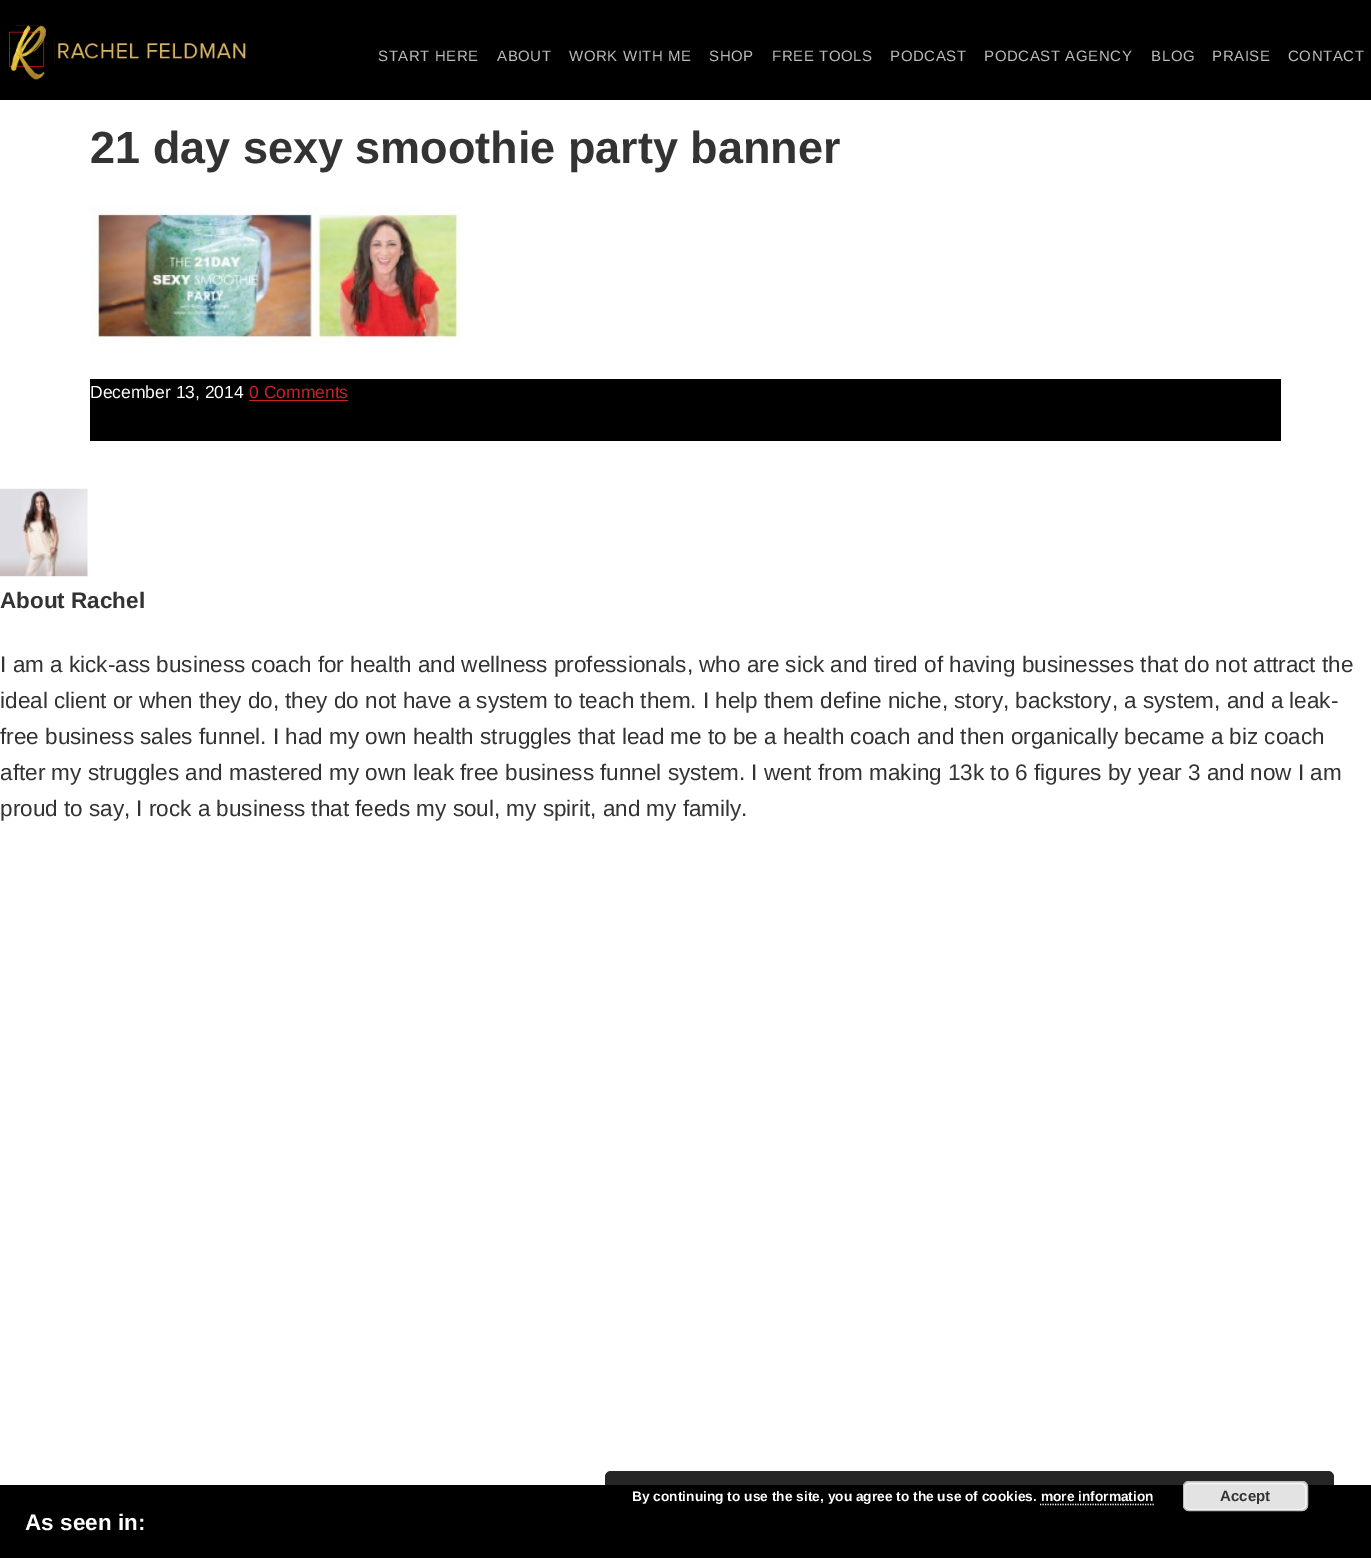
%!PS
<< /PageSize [1371 1558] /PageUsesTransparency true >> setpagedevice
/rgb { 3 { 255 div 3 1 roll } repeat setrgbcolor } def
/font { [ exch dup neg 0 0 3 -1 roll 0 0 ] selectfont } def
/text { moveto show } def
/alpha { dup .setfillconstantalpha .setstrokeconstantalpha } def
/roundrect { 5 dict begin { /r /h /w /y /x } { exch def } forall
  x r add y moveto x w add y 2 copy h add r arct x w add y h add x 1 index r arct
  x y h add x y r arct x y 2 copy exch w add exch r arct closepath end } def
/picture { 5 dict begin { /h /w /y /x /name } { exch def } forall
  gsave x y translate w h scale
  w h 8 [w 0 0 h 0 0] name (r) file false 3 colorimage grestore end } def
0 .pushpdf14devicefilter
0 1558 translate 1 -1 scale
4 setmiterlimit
255 255 255 rgb
0 0 1371 1558 rectfill
0 0 0 rgb
0 0 1371 100 rectfill
(img_01.rgb) 9 25 237 55 picture
(img_02.rgb) 90 206 375 139 picture
90 379 1191 62 rectfill
203 32 40 rgb
249 400 99 1 rectfill
(img_03.rgb) 0 488 88 89 picture
0 0 0 rgb
0 1485 1371 73 rectfill
0.85 alpha
605 1471 729 50 6 roundrect fill
1 alpha
227 227 227 rgb
1183 1481 125 30 6 roundrect fill
246 246 246 rgb
1184.5 1483.5 121 26 4.5 roundrect stroke
187 187 187 rgb
1183.5 1481.5 124 29 5.5 roundrect stroke
255 255 255 rgb
1.2 setlinewidth
[1.25 1.25] 0 setdash
1040 1504.5 moveto 114 0 rlineto stroke
/LiberationSans-Regular 15 font
187 187 187 rgb
378 61 moveto 0.6 0 (START HERE) ashow
497 61 moveto 0.6 0 (ABOUT) ashow
569 61 moveto 0.6 0 (WORK WITH ME) ashow
709 61 moveto 0.6 0 (SHOP) ashow
772 61 moveto 0.6 0 (FREE TOOLS) ashow
890 61 moveto 0.6 0 (PODCAST) ashow
984 61 moveto 0.6 0 (PODCAST AGENCY) ashow
1151 61 moveto 0.6 0 (BLOG) ashow
1212 61 moveto 0.6 0 (PRAISE) ashow
1288 61 moveto 0.6 0 (CONTACT) ashow
/LiberationSans-Bold 45 font
51 51 51 rgb
(21 day sexy smoothie party banner) 90 163 text
/LiberationSans-Regular 17.5 font
255 255 255 rgb
(December 13, 2014) 90 398 text
203 32 40 rgb
(0 Comments) 249 398 text
/LiberationSans-Bold 22.5 font
51 51 51 rgb
(About Rachel) 0 608 text
/LiberationSans-Regular 22.5 font
(I am a kick-ass business coach for health and wellness professionals, who are sick and tired of having businesses that do not attract the) 0 672 text
(ideal client or when they do, they do not have a system to teach them. I help them define niche, story, backstory, a system, and a leak-) 0 708 text
(free business sales funnel. I had my own health struggles that lead me to be a health coach and then organically became a biz coach) 0 744 text
(after my struggles and mastered my own leak free business funnel system. I went from making 13k to 6 figures by year 3 and now I am) 0 780 text
(proud to say, I rock a business that feeds my soul, my spirit, and my family.) 0 816 text
/LiberationSans-Bold 22.5 font
255 255 255 rgb
(As seen in:) 25 1530 text
/LiberationSans-Bold 13.75 font
(By continuing to use the site, you agree to the use of cookies. more information) 632 1501 text
/LiberationSans-Bold 15 font
51 51 51 rgb
(Accept) 1220 1501 text
.poppdf14devicefilter showpage
